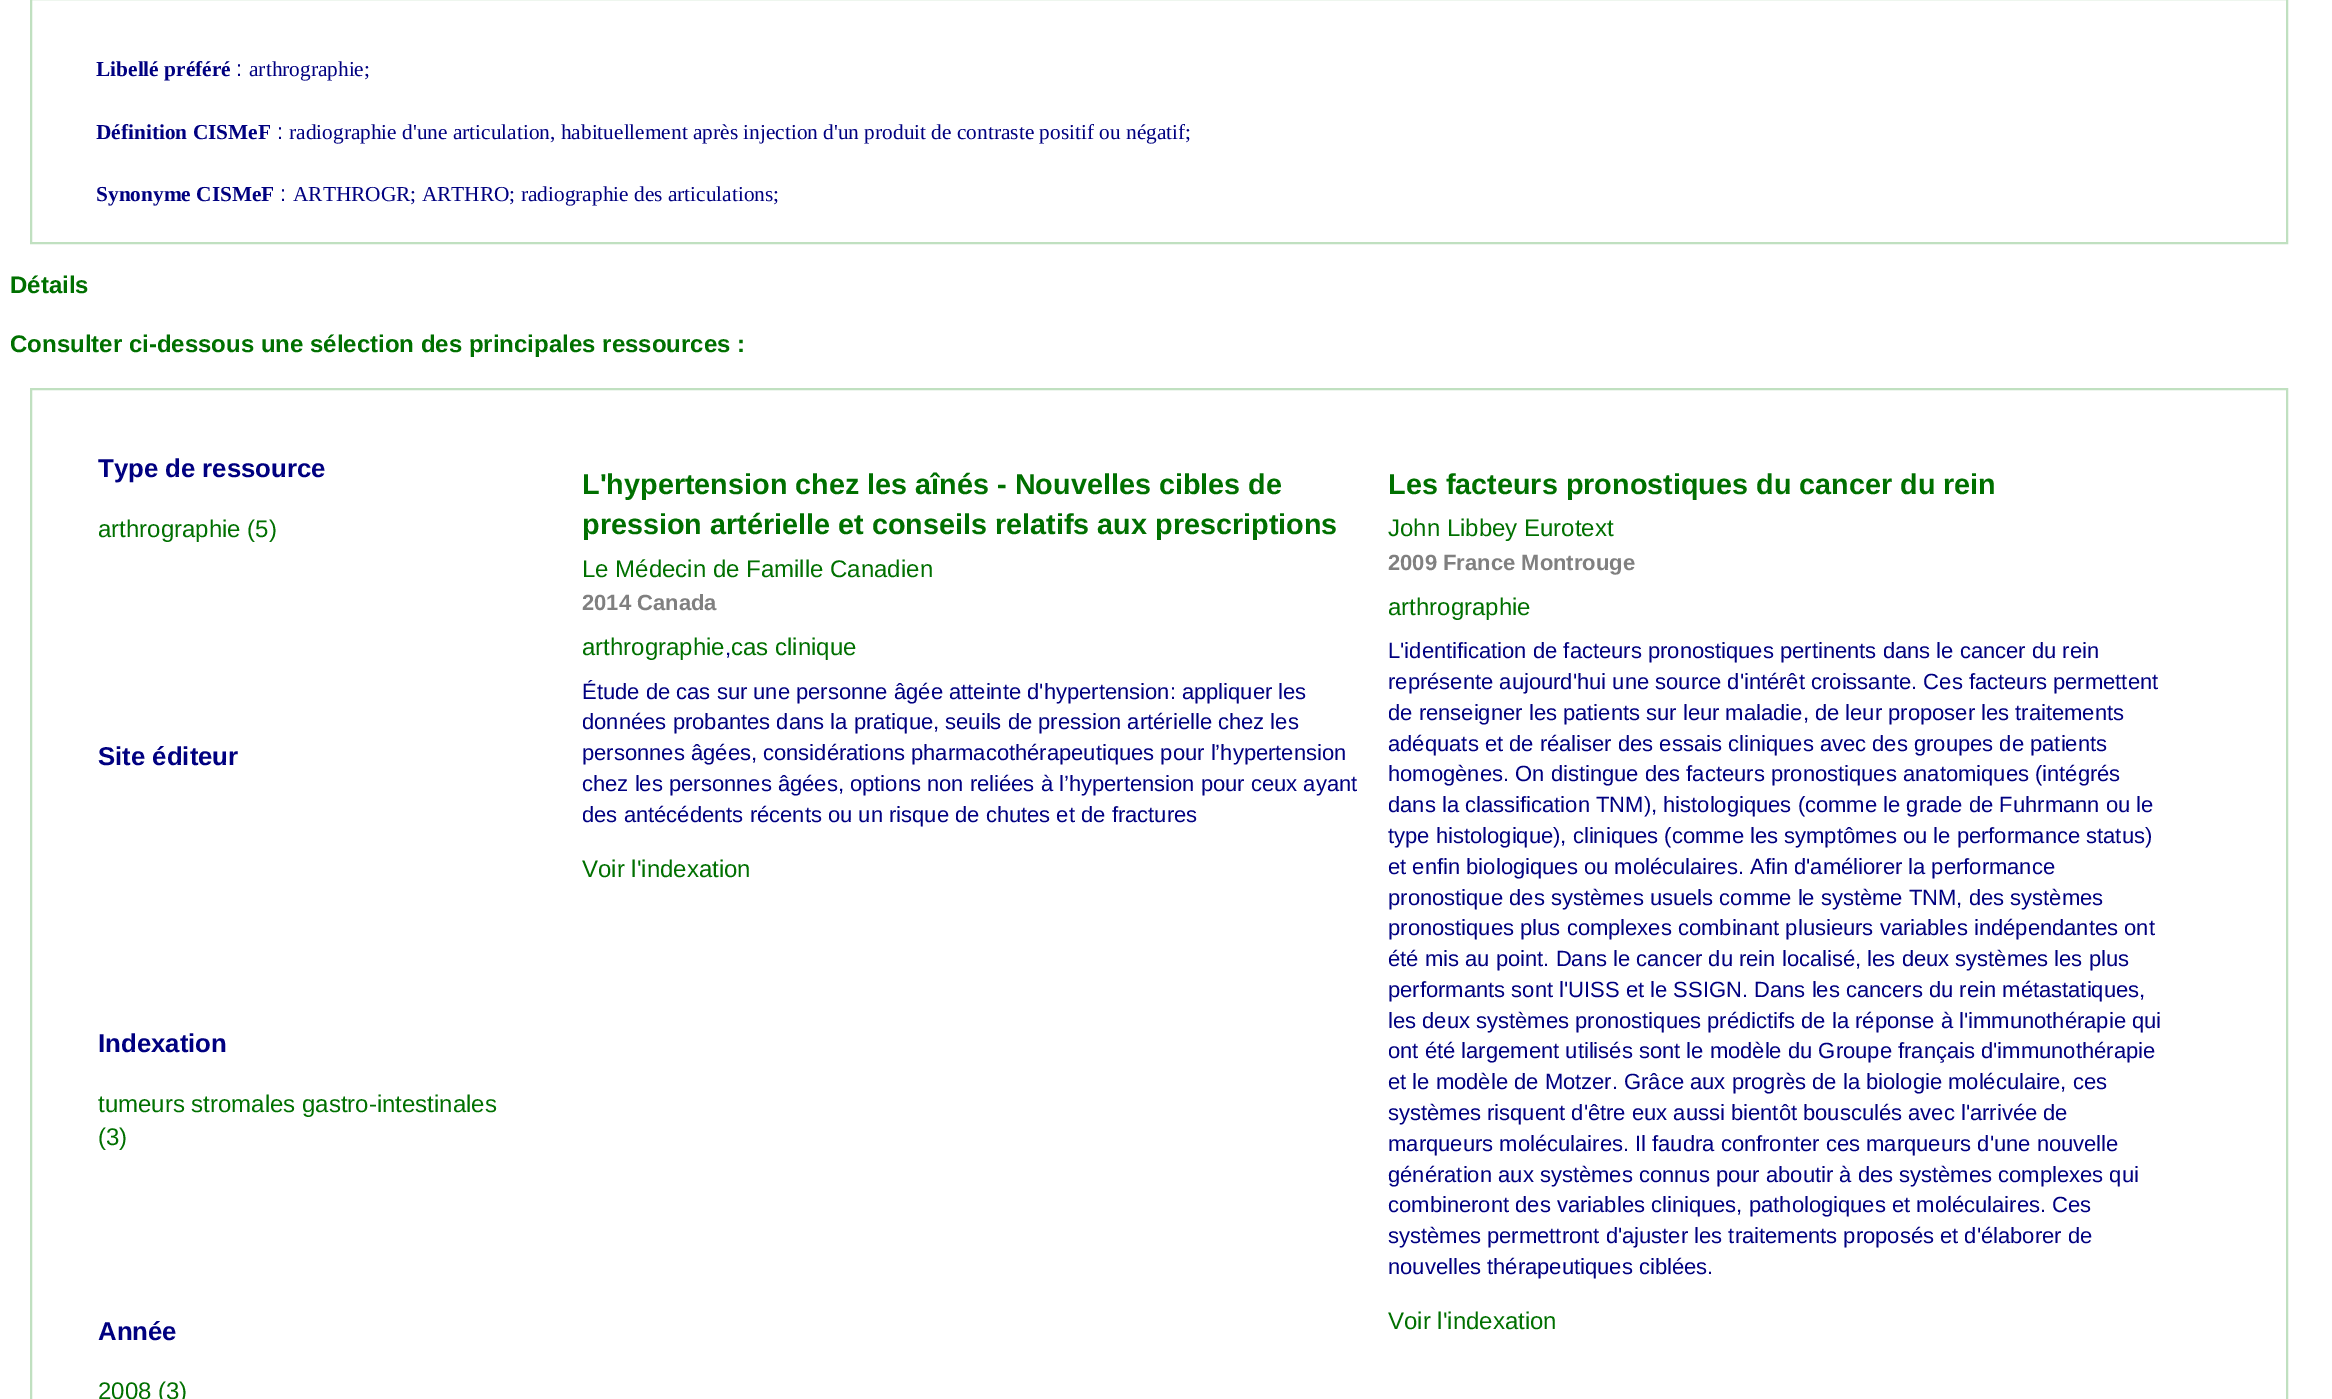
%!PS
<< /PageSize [2332 1399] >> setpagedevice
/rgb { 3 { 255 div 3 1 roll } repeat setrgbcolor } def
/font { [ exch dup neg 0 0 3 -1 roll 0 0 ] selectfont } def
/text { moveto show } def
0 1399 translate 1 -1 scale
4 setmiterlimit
255 255 255 rgb
0 0 2332 1399 rectfill
192 224 192 rgb
2 setlinewidth
31 -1 2256 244 rectstroke
31 389 2256 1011 rectstroke
/LiberationSerif-Bold 21.35 font
0 0 128 rgb
(Libellé préféré) 96 76 text
/LiberationSans-Regular 22 font
(:) 236 76 text
/LiberationSerif-Regular 21.35 font
(arthrographie;) 249 76 text
/LiberationSerif-Bold 21.35 font
(Définition CISMeF) 96 139 text
/LiberationSans-Regular 22 font
(:) 277 139 text
/LiberationSerif-Regular 21.35 font
(radiographie d'une articulation, habituellement après injection d'un produit de contraste positif ou négatif;) 289 139 text
/LiberationSerif-Bold 21.35 font
(Synonyme CISMeF) 96 201 text
/LiberationSans-Regular 22 font
(:) 280 201 text
/LiberationSerif-Regular 21.35 font
(ARTHROGR; ARTHRO; radiographie des articulations;) 293 201 text
/LiberationSans-Bold 24 font
0 112 0 rgb
(Détails) 10 293 text
(Consulter ci-dessous une sélection des principales ressources :) 10 352 text
/LiberationSans-Bold 25.75 font
0 0 128 rgb
(Type de ressource) 98 477 text
/LiberationSans-Regular 24 font
0 112 0 rgb
(arthrographie \(5\)) 98 537 text
/LiberationSans-Bold 25.75 font
0 0 128 rgb
(Site éditeur) 98 765 text
(Indexation) 98 1052 text
/LiberationSans-Regular 24 font
0 112 0 rgb
(tumeurs stromales gastro-intestinales) 98 1112 text
(\(3\)) 98 1145 text
/LiberationSans-Bold 25.75 font
0 0 128 rgb
(Année) 98 1340 text
/LiberationSans-Regular 24 font
0 112 0 rgb
(2008 \(3\)) 98 1399 text
/LiberationSans-Bold 28.8 font
(L'hypertension chez les aînés - Nouvelles cibles de) 582 494 text
(pression artérielle et conseils relatifs aux prescriptions) 582 534 text
/LiberationSans-Regular 24 font
(Le Médecin de Famille Canadien) 582 577 text
/LiberationSans-Bold 22 font
128 128 128 rgb
(2014 Canada) 582 610 text
/LiberationSans-Regular 24 font
0 112 0 rgb
(arthrographie) 582 655 text
/LiberationSans-Regular 22 font
0 0 128 rgb
(,) 725 655 text
/LiberationSans-Regular 24 font
0 112 0 rgb
(cas clinique) 731 655 text
/LiberationSans-Regular 22 font
0 0 128 rgb
(Étude de cas sur une personne âgée atteinte d'hypertension: appliquer les) 582 699 text
(données probantes dans la pratique, seuils de pression artérielle chez les) 582 729 text
(personnes âgées, considérations pharmacothérapeutiques pour l’hypertension) 582 760 text
(chez les personnes âgées, options non reliées à l’hypertension pour ceux ayant) 582 791 text
(des antécédents récents ou un risque de chutes et de fractures) 582 822 text
/LiberationSans-Regular 24 font
0 112 0 rgb
(Voir l'indexation) 582 877 text
/LiberationSans-Bold 28.8 font
(Les facteurs pronostiques du cancer du rein) 1388 494 text
/LiberationSans-Regular 24 font
(John Libbey Eurotext) 1388 536 text
/LiberationSans-Bold 22 font
128 128 128 rgb
(2009 France Montrouge) 1388 570 text
/LiberationSans-Regular 24 font
0 112 0 rgb
(arthrographie) 1388 615 text
/LiberationSans-Regular 22 font
0 0 128 rgb
(L'identification de facteurs pronostiques pertinents dans le cancer du rein) 1388 658 text
(représente aujourd'hui une source d'intérêt croissante. Ces facteurs permettent) 1388 689 text
(de renseigner les patients sur leur maladie, de leur proposer les traitements) 1388 720 text
(adéquats et de réaliser des essais cliniques avec des groupes de patients) 1388 751 text
(homogènes. On distingue des facteurs pronostiques anatomiques \(intégrés) 1388 781 text
(dans la classification TNM\), histologiques \(comme le grade de Fuhrmann ou le) 1388 812 text
(type histologique\), cliniques \(comme les symptômes ou le performance status\)) 1388 843 text
(et enfin biologiques ou moléculaires. Afin d'améliorer la performance) 1388 874 text
(pronostique des systèmes usuels comme le système TNM, des systèmes) 1388 905 text
(pronostiques plus complexes combinant plusieurs variables indépendantes ont) 1388 935 text
(été mis au point. Dans le cancer du rein localisé, les deux systèmes les plus) 1388 966 text
(performants sont l'UISS et le SSIGN. Dans les cancers du rein métastatiques,) 1388 997 text
(les deux systèmes pronostiques prédictifs de la réponse à l'immunothérapie qui) 1388 1028 text
(ont été largement utilisés sont le modèle du Groupe français d'immunothérapie) 1388 1058 text
(et le modèle de Motzer. Grâce aux progrès de la biologie moléculaire, ces) 1388 1089 text
(systèmes risquent d'être eux aussi bientôt bousculés avec l'arrivée de) 1388 1120 text
(marqueurs moléculaires. Il faudra confronter ces marqueurs d'une nouvelle) 1388 1151 text
(génération aux systèmes connus pour aboutir à des systèmes complexes qui) 1388 1182 text
(combineront des variables cliniques, pathologiques et moléculaires. Ces) 1388 1212 text
(systèmes permettront d'ajuster les traitements proposés et d'élaborer de) 1388 1243 text
(nouvelles thérapeutiques ciblées.) 1388 1274 text
/LiberationSans-Regular 24 font
0 112 0 rgb
(Voir l'indexation) 1388 1329 text
showpage
